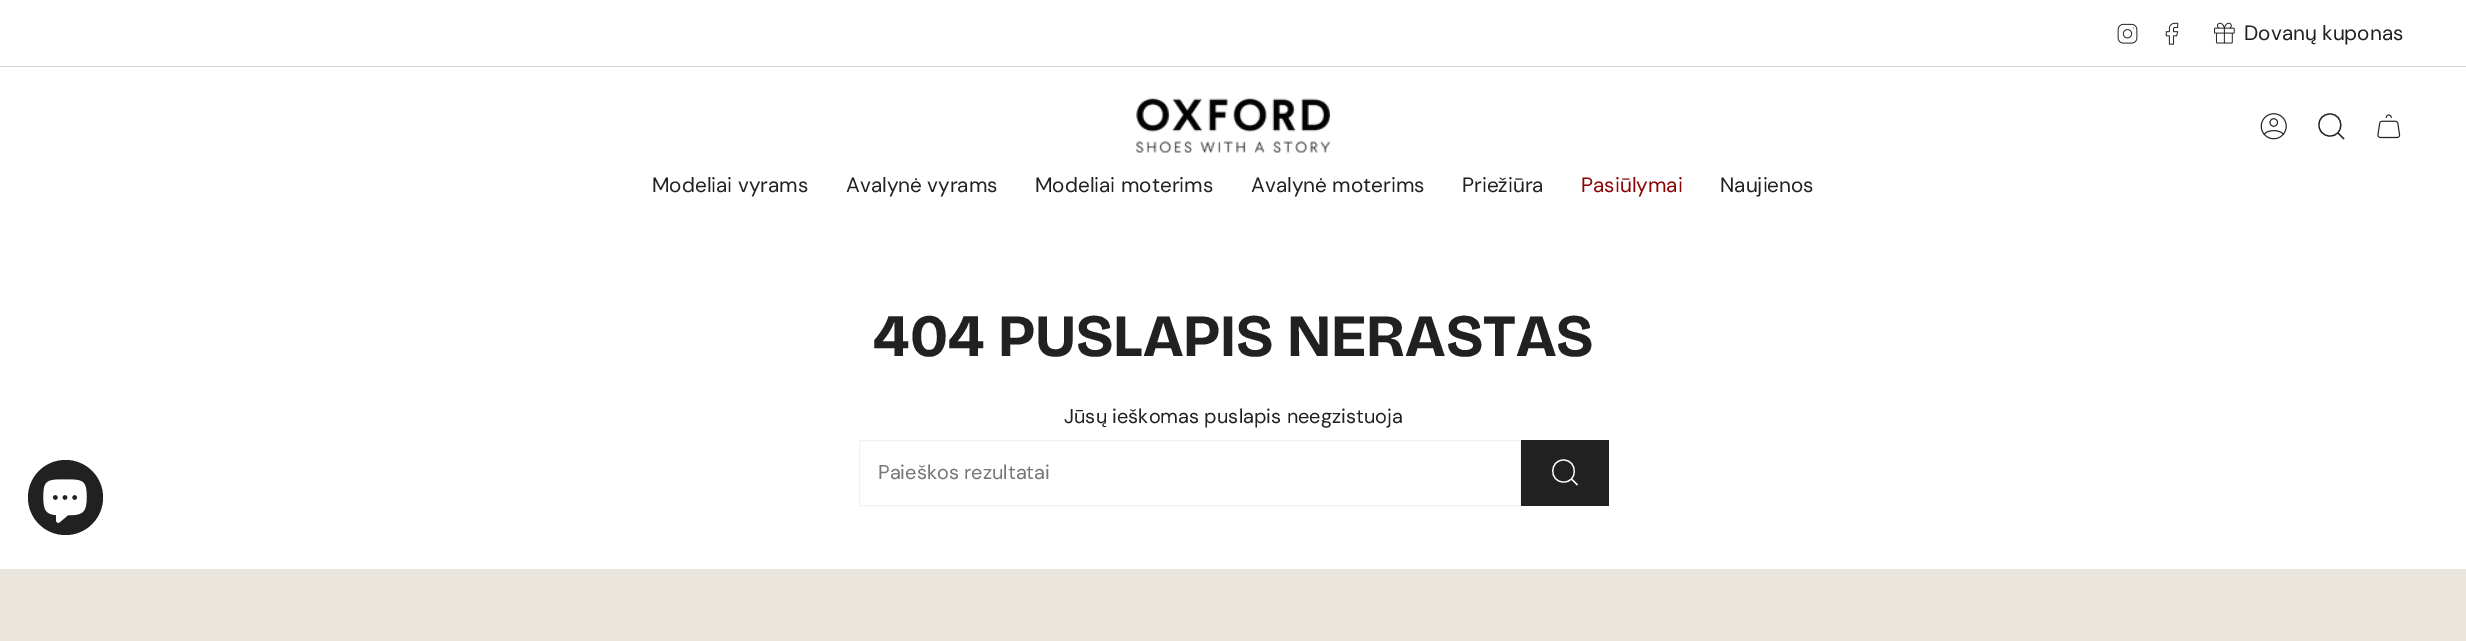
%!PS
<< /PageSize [2466 641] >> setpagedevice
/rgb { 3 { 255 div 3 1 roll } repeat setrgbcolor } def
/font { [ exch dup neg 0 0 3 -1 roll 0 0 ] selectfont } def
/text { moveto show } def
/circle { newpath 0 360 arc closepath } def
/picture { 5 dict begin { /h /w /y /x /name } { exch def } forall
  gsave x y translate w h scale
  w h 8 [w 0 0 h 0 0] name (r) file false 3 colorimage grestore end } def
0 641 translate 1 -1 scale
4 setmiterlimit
255 255 255 rgb
0 0 2466 641 rectfill
(img_01.rgb) 2117 23 21 21 picture
(img_02.rgb) 2165 22 14 23 picture
(img_03.rgb) 2214 22 21 22 picture
211 211 211 rgb
0 66 2466 1 rectfill
(img_04.rgb) 1136 98 194 55 picture
(img_05.rgb) 2260 113 27 27 picture
33 33 33 rgb
1.2 setlinewidth
2330 114 moveto 14.5 0 14.5 22.5 -0.5 22 rcurveto -14.5 -1 -14 -22 0.5 -22 rcurveto closepath 2337.5 132.5 moveto 6.5 6.5 rlineto stroke
(img_06.rgb) 2377 114 24 25 picture
245 242 236 rgb
1 setlinewidth
859.5 440.5 661 65 rectstroke
33 33 33 rgb
1521 440 88 66 rectfill
255 255 255 rgb
1.2 setlinewidth
1563.5 460 moveto 14.5 0 14.5 23 -0.5 22 rcurveto -14 -0.5 -13.5 -22 0.5 -22 rcurveto closepath 1571.5 479 moveto 6 6 rlineto stroke
33 33 33 rgb
65.5 497.5 37.5 circle fill
(img_07.rgb) 43 479 44 44 picture
234 230 221 rgb
0 569 2466 72 rectfill
/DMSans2-Regular 20.75 font
33 33 33 rgb
(Dovanų kuponas) 2244 40 text
(Modeliai vyrams) 652 192 text
(Avalynė vyrams) 846 192 text
(Modeliai moterims) 1035 192 text
(Avalynė moterims) 1251 192 text
(Priežiūra) 1462 192 text
140 3 3 rgb
(Pasiūlymai) 1581 192 text
33 33 33 rgb
(Naujienos) 1720 192 text
/BricolageGrotesque-Bold 60 font
(404 PUSLAPIS NERASTAS) 873 356 text
/DMSans-Regular 20 font
(Jūsų ieškomas puslapis neegzistuoja) 1064 423 text
117 117 117 rgb
(Paieškos rezultatai) 878 479 text
showpage
